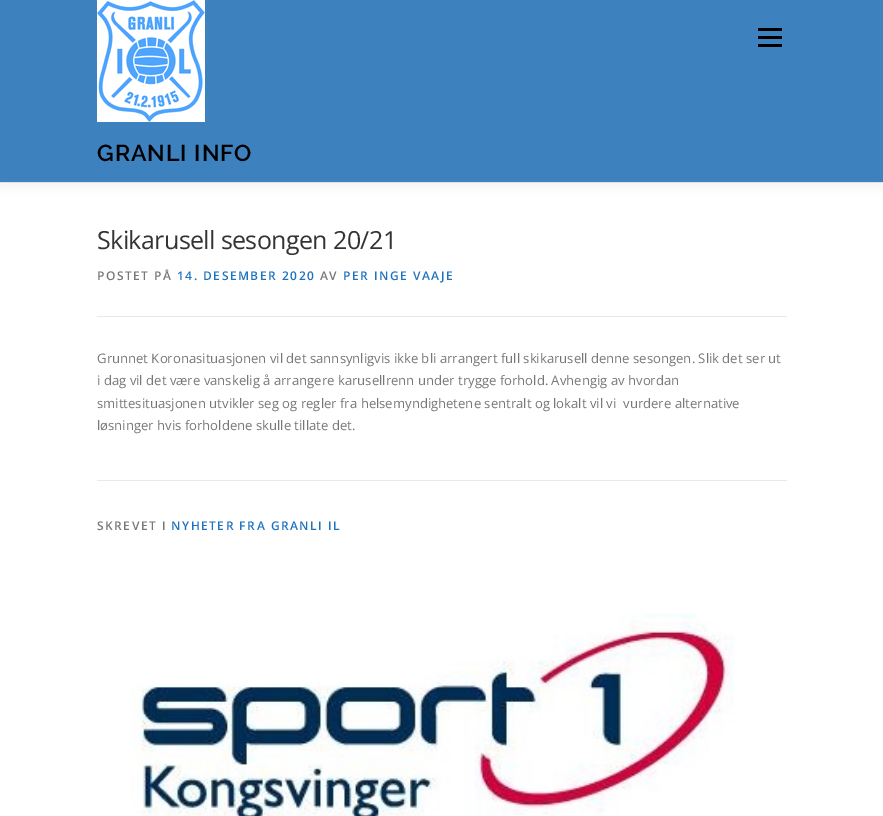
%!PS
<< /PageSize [883 816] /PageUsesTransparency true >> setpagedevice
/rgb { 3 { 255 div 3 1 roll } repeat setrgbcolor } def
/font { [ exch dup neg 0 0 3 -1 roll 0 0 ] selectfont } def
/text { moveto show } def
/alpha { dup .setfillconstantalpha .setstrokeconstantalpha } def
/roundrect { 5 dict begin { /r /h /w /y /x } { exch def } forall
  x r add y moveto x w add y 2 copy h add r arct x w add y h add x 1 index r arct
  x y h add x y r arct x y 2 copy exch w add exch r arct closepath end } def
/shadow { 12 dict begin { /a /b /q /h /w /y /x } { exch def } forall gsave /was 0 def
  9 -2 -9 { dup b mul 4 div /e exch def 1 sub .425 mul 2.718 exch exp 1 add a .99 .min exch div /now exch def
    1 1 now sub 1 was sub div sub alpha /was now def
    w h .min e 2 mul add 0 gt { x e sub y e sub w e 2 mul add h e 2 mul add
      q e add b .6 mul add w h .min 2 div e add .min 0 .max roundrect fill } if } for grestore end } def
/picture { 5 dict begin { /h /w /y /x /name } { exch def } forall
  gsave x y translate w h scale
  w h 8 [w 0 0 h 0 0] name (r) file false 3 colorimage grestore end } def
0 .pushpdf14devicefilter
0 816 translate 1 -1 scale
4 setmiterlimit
255 255 255 rgb
0 0 883 816 rectfill
233 233 233 rgb
0 182 883 1 rectfill
50 50 50 rgb
0 5 883 182 0 5 0.06 shadow
61 130 191 rgb
0 0 883 182 rectfill
0 0 0 rgb
758 36 24 3 rectfill
758 28 24 3 rectfill
758 44 24 3 rectfill
(img_01.rgb) 97 0 108 122 picture
233 233 233 rgb
97 316 690 1 rectfill
97 480 690 1 rectfill
(img_02.rgb) 131 613 604 203 picture
/Raleway-SemiBold 23 font
0 0 0 rgb
97 161 moveto 1 0 (GRANLI INFO) ashow
/OpenSans-Regular 25 font
51 51 51 rgb
97 249 moveto -0.6 0 (Skikarusell sesongen 20/21) ashow
/OpenSans-SemiBold 12 font
119 119 119 rgb
97 280 moveto 1.5 0 (POSTET PÅ) ashow
30 115 190 rgb
177 280 moveto 1.5 0 (14. DESEMBER 2020) ashow
119 119 119 rgb
320 280 moveto 1.5 0 (AV) ashow
30 115 190 rgb
343 280 moveto 1.5 0 (PER INGE VAAJE) ashow
/OpenSans-Regular 13.12 font
119 119 119 rgb
(Grunnet Koronasituasjonen vil det sannsynligvis ikke bli arrangert full skikarusell denne sesongen. Slik det ser ut) 97 363 text
(i dag vil det være vanskelig å arrangere karusellrenn under trygge forhold. Avhengig av hvordan) 97 385 text
(smittesituasjonen utvikler seg og regler fra helsemyndighetene sentralt og lokalt vil vi  vurdere alternative) 97 408 text
(løsninger hvis forholdene skulle tillate det.) 97 430 text
/OpenSans-SemiBold 12 font
97 530 moveto 1.5 0 (SKREVET I) ashow
30 115 190 rgb
171 530 moveto 1.5 0 (NYHETER FRA GRANLI IL) ashow
.poppdf14devicefilter showpage
